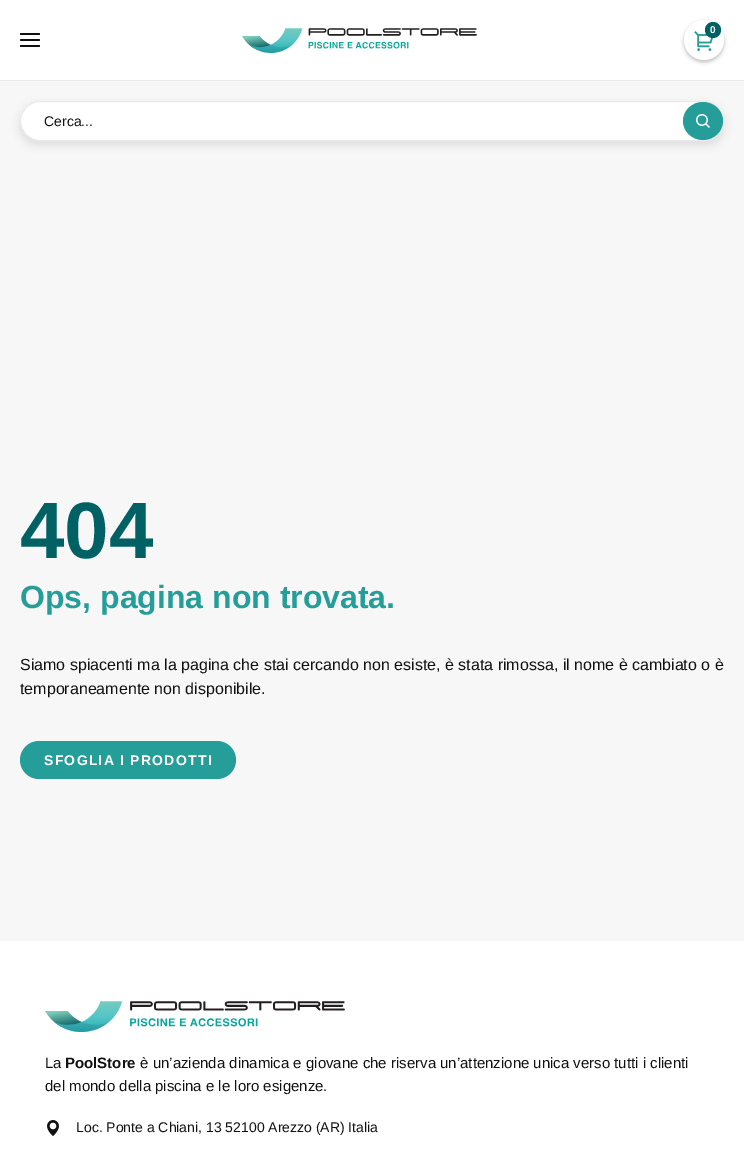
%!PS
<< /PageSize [744 1156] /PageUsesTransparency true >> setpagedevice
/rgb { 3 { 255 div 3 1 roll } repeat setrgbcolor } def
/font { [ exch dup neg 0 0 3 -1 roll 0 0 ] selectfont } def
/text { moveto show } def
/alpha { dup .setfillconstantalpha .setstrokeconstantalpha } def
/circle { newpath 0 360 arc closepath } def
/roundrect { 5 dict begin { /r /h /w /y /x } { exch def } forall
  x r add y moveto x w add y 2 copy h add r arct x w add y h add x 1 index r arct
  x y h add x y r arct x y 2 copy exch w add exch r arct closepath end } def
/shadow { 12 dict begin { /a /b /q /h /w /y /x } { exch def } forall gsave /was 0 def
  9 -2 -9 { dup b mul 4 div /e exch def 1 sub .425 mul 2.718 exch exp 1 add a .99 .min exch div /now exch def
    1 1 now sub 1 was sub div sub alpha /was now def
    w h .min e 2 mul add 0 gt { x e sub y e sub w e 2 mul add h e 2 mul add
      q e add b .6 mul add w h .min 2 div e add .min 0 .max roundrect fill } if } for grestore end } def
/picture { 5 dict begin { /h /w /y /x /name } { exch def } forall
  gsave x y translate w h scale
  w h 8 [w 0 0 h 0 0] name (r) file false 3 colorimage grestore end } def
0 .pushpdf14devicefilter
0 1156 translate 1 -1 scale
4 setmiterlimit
247 247 247 rgb
0 0 744 1156 rectfill
255 255 255 rgb
0 0 744 80 rectfill
17 17 17 rgb
20 33 20 2 1 roundrect fill
20 39 20 2 1 roundrect fill
20 45 20 2 1 roundrect fill
(img_01.rgb) 242 28 235 25 picture
32 33 36 rgb
684 22 40 40 20 2 0.28 shadow
255 255 255 rgb
704 40 20 circle fill
(img_02.rgb) 694 31 20 20 picture
0 97 100 rgb
713 30 8 circle fill
234 234 234 rgb
0 80 744 1 rectfill
32 33 36 rgb
19 104 706 42 21 4 0.11 shadow
255 255 255 rgb
20.5 101.5 703 39 19.5 roundrect gsave fill grestore
234 234 234 rgb
stroke
37 157 153 rgb
703 102 moveto 11 0 20 8.5 20 19 rcurveto 0 10.5 -9 19 -20 19 rcurveto -11 0 -20 -8.5 -20 -19 rcurveto 0 -10.5 9 -19 20 -19 rcurveto closepath fill
(img_03.rgb) 696 114 14 14 picture
20 741 216 38 19 roundrect fill
255 255 255 rgb
0 941 744 215 rectfill
(img_04.rgb) 45 1001 300 31 picture
(img_05.rgb) 47 1120 12 16 picture
/LiberationSans-Bold 10 font
(0) 710 33 text
/LiberationSans-Regular 14 font
17 17 17 rgb
(Cerca...) 44 126 text
/LiberationSans-Bold 80 font
0 97 100 rgb
(404) 20 558 text
/LiberationSans-Bold 32 font
37 157 153 rgb
(Ops, pagina non trovata.) 20 608 text
/LiberationSans-Regular 16 font
17 17 17 rgb
(Siamo spiacenti ma la pagina che stai cercando non esiste, è stata rimossa, il nome è cambiato o è) 20 670 text
(temporaneamente non disponibile.) 20 694 text
/LiberationSans-Bold 14 font
255 255 255 rgb
44 765 moveto 1.25 0 (SFOGLIA I PRODOTTI) ashow
/LiberationSans-Regular 15 font
17 17 17 rgb
(La) 45 1068 text
/LiberationSans-Bold 15 font
(PoolStore) 65 1068 text
/LiberationSans-Regular 15 font
(è un’azienda dinamica e giovane che riserva un’attenzione unica verso tutti i clienti) 140 1068 text
(del mondo della piscina e le loro esigenze.) 45 1091 text
/LiberationSans-Regular 14 font
(Loc. Ponte a Chiani, 13 52100 Arezzo \(AR\) Italia) 76 1132 text
.poppdf14devicefilter showpage
